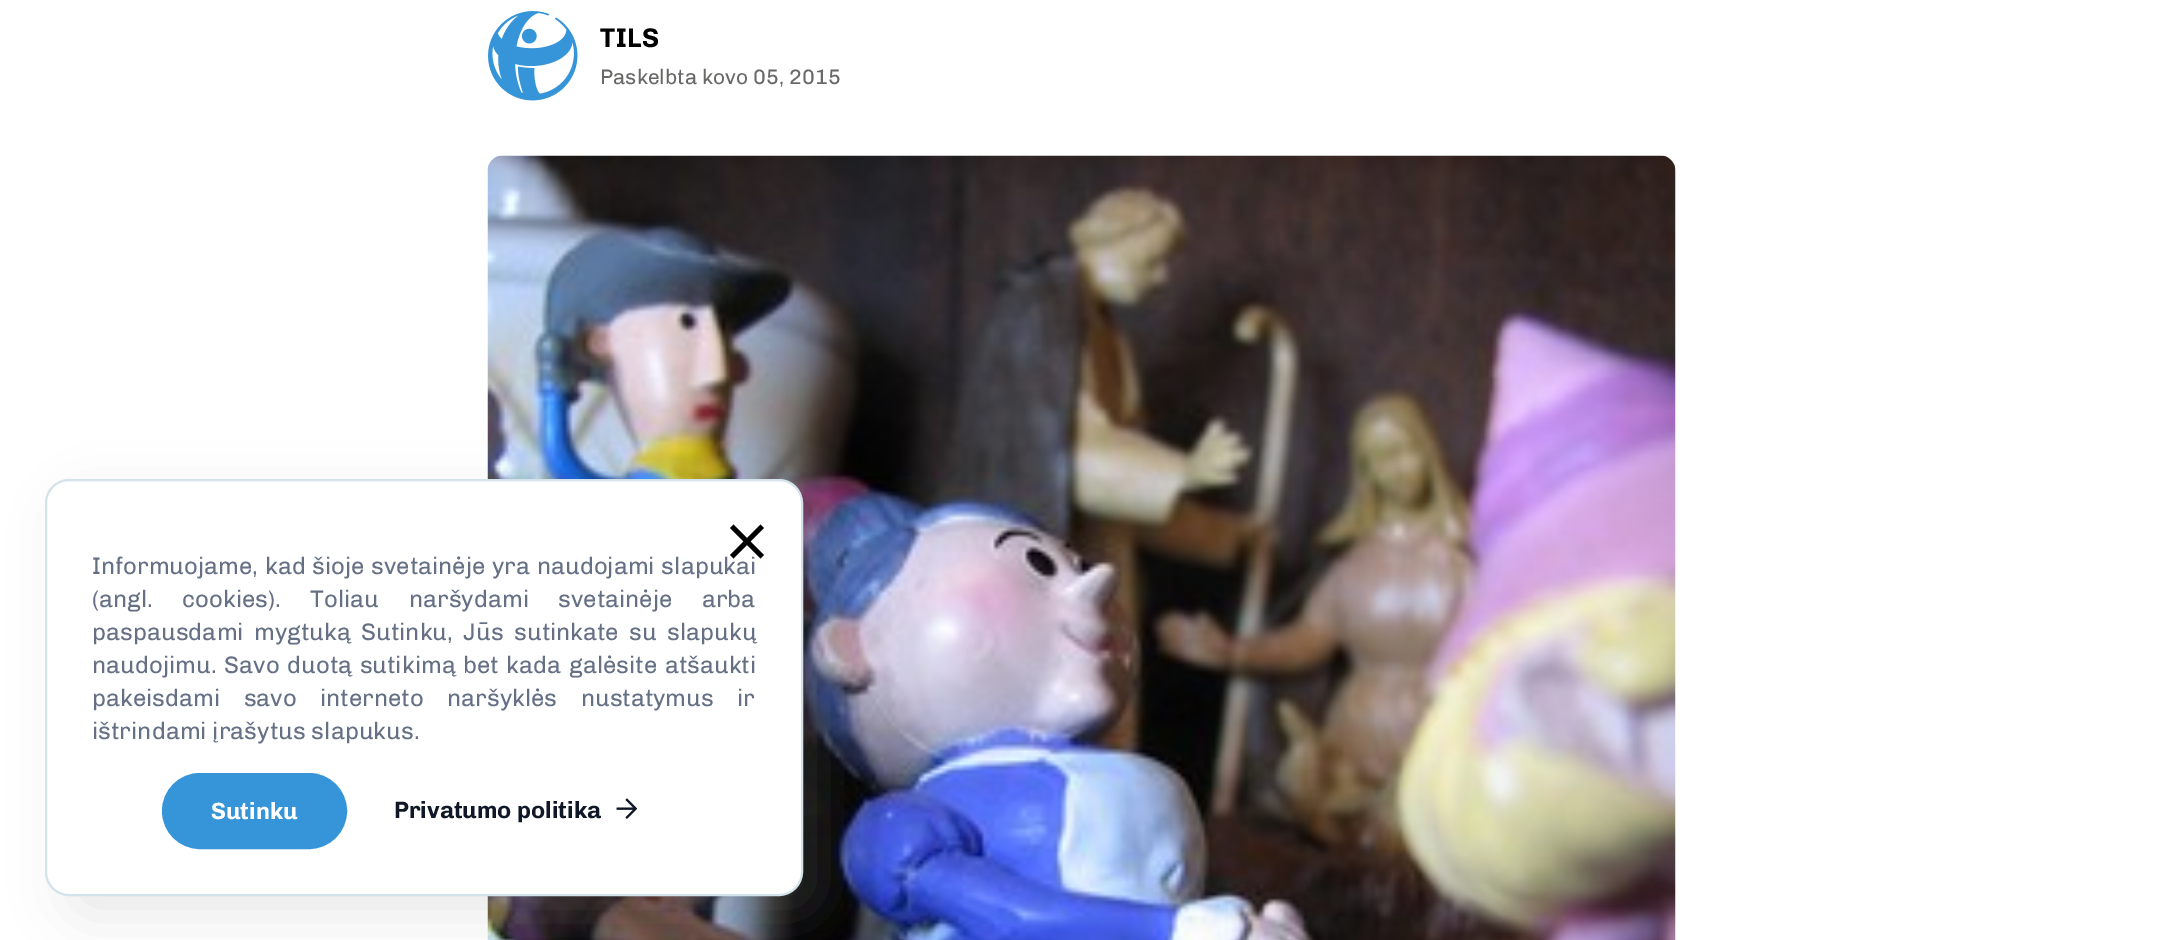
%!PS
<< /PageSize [2163 940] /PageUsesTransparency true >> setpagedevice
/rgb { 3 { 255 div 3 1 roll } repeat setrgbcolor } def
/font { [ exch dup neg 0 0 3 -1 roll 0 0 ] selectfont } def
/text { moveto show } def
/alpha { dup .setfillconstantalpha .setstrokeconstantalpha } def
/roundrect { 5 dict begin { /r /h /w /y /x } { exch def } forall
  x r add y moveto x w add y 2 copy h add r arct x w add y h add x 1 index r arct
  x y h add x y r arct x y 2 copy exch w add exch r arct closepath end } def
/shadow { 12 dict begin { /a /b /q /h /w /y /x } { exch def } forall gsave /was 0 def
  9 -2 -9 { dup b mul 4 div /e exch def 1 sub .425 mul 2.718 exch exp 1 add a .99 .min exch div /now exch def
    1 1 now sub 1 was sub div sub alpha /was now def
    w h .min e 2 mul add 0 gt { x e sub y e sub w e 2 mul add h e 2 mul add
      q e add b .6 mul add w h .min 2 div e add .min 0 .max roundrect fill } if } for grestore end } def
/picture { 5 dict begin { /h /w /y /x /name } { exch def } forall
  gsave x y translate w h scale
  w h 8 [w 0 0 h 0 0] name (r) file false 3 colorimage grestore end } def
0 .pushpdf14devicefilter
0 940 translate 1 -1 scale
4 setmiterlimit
255 255 255 rgb
0 0 2163 940 rectfill
(img_01.rgb) 488 11 90 90 picture
(img_02.rgb) 487 155 1189 785 picture
153 153 153 rgb
66 500 758 417 24 27 0.22 shadow
255 255 255 rgb
46 480 756 415 23 roundrect gsave fill grestore
211 226 235 rgb
2 setlinewidth
stroke
54 149 216 rgb
163 774 183 74 37 roundrect gsave fill grestore
stroke
(img_03.rgb) 616 798 22 21 picture
/Chivo-Bold 27 font
0 0 0 rgb
(TILS) 600 47 text
/Chivo-Regular 21 font
104 104 103 rgb
(Paskelbta kovo 05, 2015) 600 84 text
/Chivo-Regular 24 font
102 112 133 rgb
92 574 moveto 0.75 0 32 (Informuojame, kad šioje svetainėje yra naudojami slapukai) widthshow
92 607 moveto 23.5 0 32 (\(angl. cookies\). Toliau naršydami svetainėje arba) widthshow
92 640 moveto 4.5 0 32 (paspausdami mygtuką Sutinku, Jūs sutinkate su slapukų) widthshow
92 673 moveto 1.75 0 32 (naudojimu. Savo duotą sutikimą bet kada galėsite atšaukti) widthshow
92 706 moveto 17.5 0 32 (pakeisdami savo interneto naršyklės nustatymus ir) widthshow
(ištrindami įrašytus slapukus.) 92 739 text
0 0 0 rgb
764 528 moveto -3.5 -3.5 rlineto -13.5 13.5 rlineto -13.5 -13.5 rlineto -3.5 3.5 rlineto 13.5 13.5 rlineto -13.5 13.5 rlineto 3.5 3.5 rlineto 13.5 -13.5 rlineto 13.5 13.5 rlineto 3.5 -3.5 rlineto -13.5 -13.5 rlineto closepath fill
/Chivo-Bold 23.6 font
255 255 255 rgb
(Sutinku) 211 819 text
16 24 40 rgb
(Privatumo politika) 394 818 text
.poppdf14devicefilter showpage
